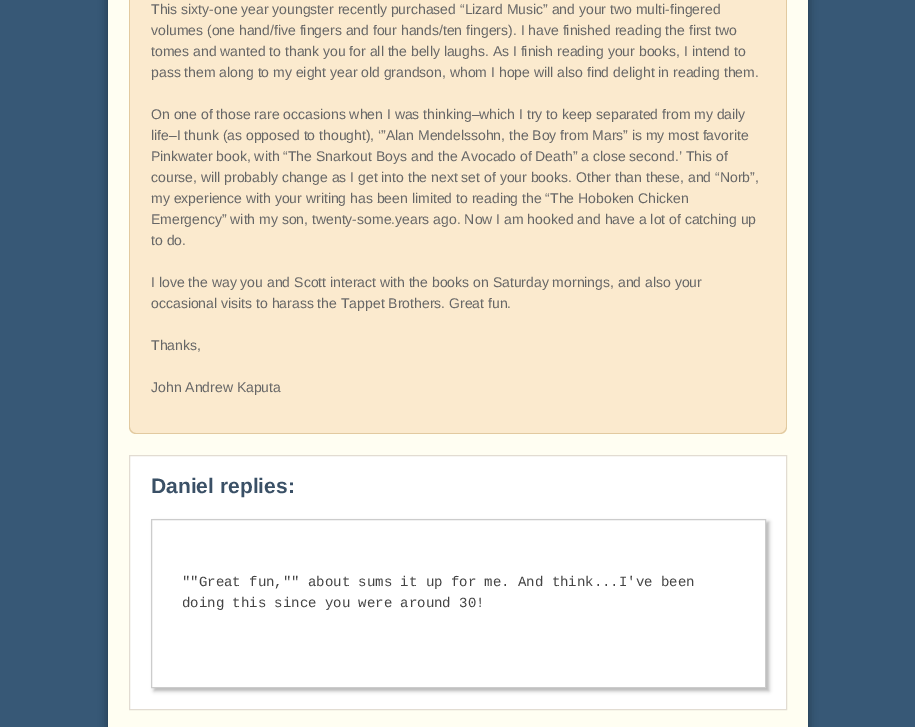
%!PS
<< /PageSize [915 727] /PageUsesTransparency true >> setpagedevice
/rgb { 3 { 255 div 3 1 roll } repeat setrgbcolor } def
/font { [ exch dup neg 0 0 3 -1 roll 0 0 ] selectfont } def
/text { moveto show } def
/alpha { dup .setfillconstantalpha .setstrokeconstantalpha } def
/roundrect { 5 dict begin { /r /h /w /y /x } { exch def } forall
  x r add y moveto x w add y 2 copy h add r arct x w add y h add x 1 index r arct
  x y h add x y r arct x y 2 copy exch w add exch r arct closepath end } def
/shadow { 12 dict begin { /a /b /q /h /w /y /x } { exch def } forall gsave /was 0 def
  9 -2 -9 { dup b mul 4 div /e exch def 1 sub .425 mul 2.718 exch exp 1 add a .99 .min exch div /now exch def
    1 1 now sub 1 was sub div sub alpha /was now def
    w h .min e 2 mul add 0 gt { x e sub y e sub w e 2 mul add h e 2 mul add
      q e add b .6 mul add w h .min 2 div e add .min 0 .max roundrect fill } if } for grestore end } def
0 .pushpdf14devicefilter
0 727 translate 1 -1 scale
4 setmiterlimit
55 88 118 rgb
0 0 915 727 rectfill
0 0 0 rgb
108 -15 700 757 0 5 0.4 shadow
255 254 242 rgb
108 0 700 727 rectfill
251 234 206 rgb
130 -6 moveto 656 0 rlineto 0 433 rlineto 0 3.5 -2.5 6 -6 6 rcurveto -644 0 rlineto -3.5 0 -6 -2.5 -6 -6 rcurveto closepath fill
226 202 160 rgb
129 -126 moveto 658 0 rlineto 0 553 rlineto 0 4 -3 7 -7 7 rcurveto -644 0 rlineto -4 0 -7 -3 -7 -7 rcurveto closepath 130 -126 moveto 656 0 rlineto 0 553 rlineto 0 3 -3 6 -6 6 rcurveto -644 0 rlineto -3 0 -6 -3 -6 -6 rcurveto closepath eofill
255 255 255 rgb
129.5 455.5 moveto 657 0 rlineto 0 254 rlineto -657 0 rlineto closepath gsave fill grestore
226 220 210 rgb
stroke
gsave
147 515 moveto 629 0 rlineto 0 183 rlineto -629 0 rlineto closepath 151 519 moveto 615 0 rlineto 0 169 rlineto -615 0 rlineto closepath eoclip newpath
0 0 0 rgb
154 522 615 169 0 2 0.3 shadow
grestore
204 204 204 rgb
151.5 519.5 614 168 rectstroke
/LiberationSans-Regular 14 font
102 102 102 rgb
(This sixty-one year youngster recently purchased “Lizard Music” and your two multi-fingered) 151 14 text
(volumes \(one hand/five fingers and four hands/ten fingers\). I have finished reading the first two) 151 35 text
(tomes and wanted to thank you for all the belly laughs. As I finish reading your books, I intend to) 151 56 text
(pass them along to my eight year old grandson, whom I hope will also find delight in reading them.) 151 77 text
(On one of those rare occasions when I was thinking–which I try to keep separated from my daily) 151 119 text
(life–I thunk \(as opposed to thought\), ‘”Alan Mendelssohn, the Boy from Mars” is my most favorite) 151 140 text
(Pinkwater book, with “The Snarkout Boys and the Avocado of Death” a close second.’ This of) 151 161 text
(course, will probably change as I get into the next set of your books. Other than these, and “Norb”,) 151 182 text
(my experience with your writing has been limited to reading the “The Hoboken Chicken) 151 203 text
(Emergency” with my son, twenty-some.years ago. Now I am hooked and have a lot of catching up) 151 224 text
(to do.) 151 245 text
(I love the way you and Scott interact with the books on Saturday mornings, and also your) 151 287 text
(occasional visits to harass the Tappet Brothers. Great fun.) 151 308 text
(Thanks,) 151 350 text
(John Andrew Kaputa) 151 392 text
/LiberationSans-Bold 21 font
58 80 102 rgb
(Daniel replies:) 151 493 text
/LiberationMono-Regular 14 font
68 68 68 rgb
(""Great fun,"" about sums it up for me. And think...I've been) 182 586 text
(doing this since you were around 30!) 182 607 text
.poppdf14devicefilter showpage
